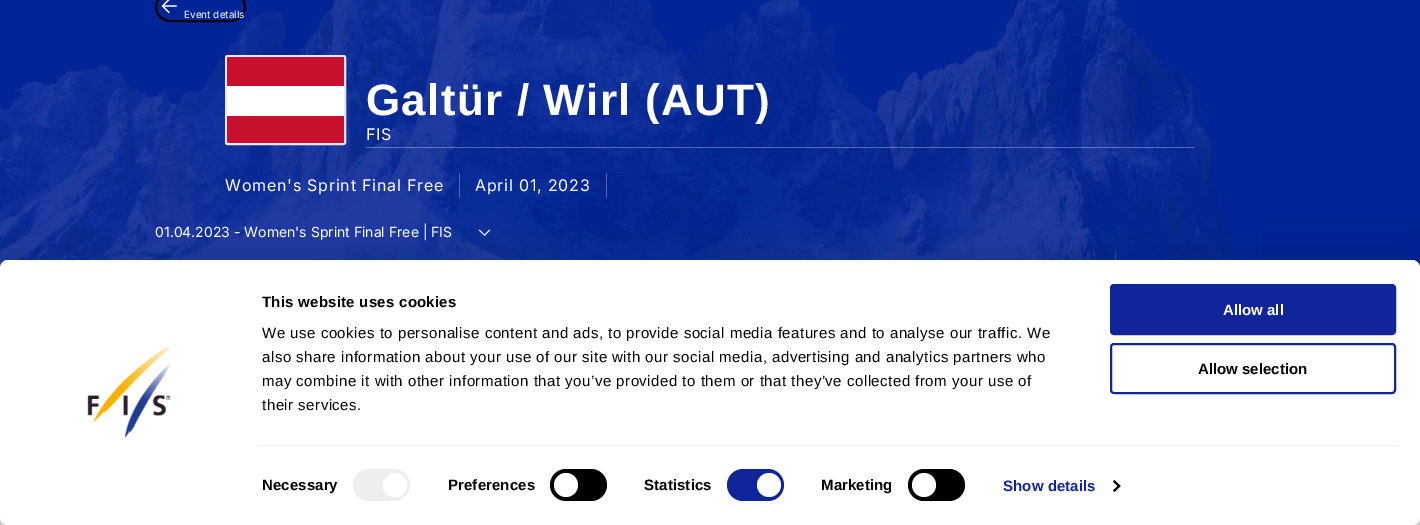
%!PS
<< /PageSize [1420 525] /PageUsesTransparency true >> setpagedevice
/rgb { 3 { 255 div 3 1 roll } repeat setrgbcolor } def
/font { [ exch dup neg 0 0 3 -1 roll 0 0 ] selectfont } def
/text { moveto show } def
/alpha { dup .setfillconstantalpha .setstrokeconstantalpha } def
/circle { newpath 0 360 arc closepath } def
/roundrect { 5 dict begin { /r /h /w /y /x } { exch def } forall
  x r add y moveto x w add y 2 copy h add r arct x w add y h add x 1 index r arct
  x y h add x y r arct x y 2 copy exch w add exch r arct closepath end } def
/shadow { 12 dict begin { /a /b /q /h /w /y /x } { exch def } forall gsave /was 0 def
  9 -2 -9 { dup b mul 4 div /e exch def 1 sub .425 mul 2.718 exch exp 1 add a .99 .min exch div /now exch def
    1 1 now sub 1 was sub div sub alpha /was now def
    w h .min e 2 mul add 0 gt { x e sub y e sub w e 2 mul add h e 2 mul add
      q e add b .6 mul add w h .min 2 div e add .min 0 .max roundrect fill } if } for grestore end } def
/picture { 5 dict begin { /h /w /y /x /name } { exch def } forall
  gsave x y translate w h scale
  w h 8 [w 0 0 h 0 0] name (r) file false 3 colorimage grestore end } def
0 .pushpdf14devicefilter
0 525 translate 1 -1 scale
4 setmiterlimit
242 244 247 rgb
0 0 1420 525 rectfill
0 35 149 rgb
1262 0 158 268 rectfill
(img_01.rgb) 0 0 1262 268 picture
0 0 0 rgb
2 setlinewidth
156 -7 89 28 14 roundrect stroke
(img_02.rgb) 161 0 16 14 picture
229 233 244 rgb
226 56 119 88 1.5 roundrect stroke
255 255 255 rgb
227 57 117 86 0.5 roundrect fill
200 16 46 rgb
344 86 moveto 0 -28 rlineto 0 -1 rlineto -116 0 rlineto -1 1 rlineto 0 28 rlineto closepath 227 116 moveto 0 26 rlineto 1 1 rlineto 116 0 rlineto 0 -1 rlineto 0 -26 rlineto closepath eofill
0.3 alpha
255 255 255 rgb
366 147 829 1 rectfill
459 173 1 25 rectfill
606 173 1 25 rectfill
1 alpha
480 230 moveto 5 5 rlineto 0 0.5 -0.5 0.5 -0.5 0.5 rcurveto -5.5 -5 rlineto -0.5 -0.5 0.5 -1 1 -0.5 rcurveto closepath fill
484 235 moveto 5.5 -5.5 rlineto 0 0 0.5 0.5 0.5 1 rcurveto -5 5 rlineto -0.5 0.5 -1 -0.5 -1 -0.5 rcurveto closepath fill
47 77 164 rgb
1115 251 1 9 rectfill
0 0 0 rgb
0 290 1420 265 8 35 0.3 shadow
255 255 255 rgb
0 260 1420 265 8 roundrect fill
238 238 238 rgb
257 445 1139 1 rectfill
353 469 57 32 16 roundrect fill
255 255 255 rgb
395 485 12 circle fill
0 0 0 rgb
550 469 57 32 16 roundrect fill
255 255 255 rgb
566 485 12 circle fill
16 37 152 rgb
727 469 57 32 16 roundrect fill
255 255 255 rgb
769 485 12 circle fill
0 0 0 rgb
908 469 57 32 16 roundrect fill
255 255 255 rgb
924 485 12 circle fill
0 0 0 rgb
1114.5 480 moveto 6 6 rlineto -1.5 1.5 rlineto -6 -6 rlineto closepath fill
1119 484.5 moveto 1.5 1.5 rlineto -6 6 rlineto -1.5 -1.5 rlineto closepath fill
16 37 152 rgb
1111 285 284 49 3 roundrect gsave fill grestore
stroke
1111 344 284 49 3 roundrect stroke
(img_03.rgb) 87 347 84 91 picture
/Inter-Regular 10 font
255 255 255 rgb
(Event details) 184 18 text
/LiberationSans-Bold 44 font
366 115 moveto 1.25 0 (Galtür / Wirl \(AUT\)) ashow
/Inter-Regular 16 font
366 140 moveto 0.8 0 (FIS) ashow
225 191 moveto 0.8 0 (Women's Sprint Final Free) ashow
475 191 moveto 0.8 0 (April 01, 2023) ashow
/Inter-Regular 14 font
(01.04.2023 - Women's Sprint Final Free | FIS) 155 237 text
/LiberationSans-Bold 15 font
0 0 0 rgb
262 307 moveto 0.25 0 (This website uses cookies) ashow
/LiberationSans-Regular 15 font
262 338 moveto 0.5 0 (We use cookies to personalise content and ads, to provide social media features and to analyse our traffic. We) ashow
262 362 moveto 0.5 0 (also share information about your use of our site with our social media, advertising and analytics partners who) ashow
262 386 moveto 0.5 0 (may combine it with other information that you’ve provided to them or that they’ve collected from your use of) ashow
262 410 moveto 0.5 0 (their services.) ashow
/LiberationSans-Bold 15 font
262 490 moveto 0.1 0 (Necessary) ashow
448 490 moveto 0.1 0 (Preferences) ashow
644 490 moveto 0.1 0 (Statistics) ashow
821 490 moveto 0.1 0 (Marketing) ashow
16 37 152 rgb
1003 491 moveto 0.1 0 (Show details) ashow
255 255 255 rgb
(Allow all) 1223 315 text
0 0 0 rgb
(Allow selection) 1198 374 text
.poppdf14devicefilter showpage
